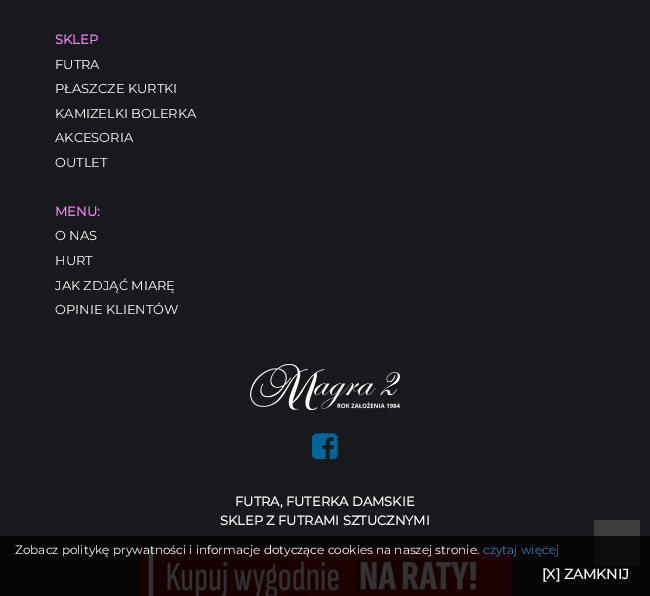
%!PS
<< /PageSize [650 596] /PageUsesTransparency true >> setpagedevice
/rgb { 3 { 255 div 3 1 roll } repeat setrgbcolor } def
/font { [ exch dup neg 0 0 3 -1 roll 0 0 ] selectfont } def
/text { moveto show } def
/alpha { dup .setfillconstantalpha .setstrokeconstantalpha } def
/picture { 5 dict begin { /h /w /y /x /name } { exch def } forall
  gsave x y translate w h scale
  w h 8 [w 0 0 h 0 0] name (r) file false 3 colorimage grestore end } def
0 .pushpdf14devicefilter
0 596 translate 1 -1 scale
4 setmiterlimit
23 25 29 rgb
0 0 650 596 rectfill
(img_01.rgb) 250 364 150 46 picture
(img_02.rgb) 312 433 26 27 picture
(img_03.rgb) 139 550 372 46 picture
60 61 63 rgb
594 520 46 46 rectfill
0.8 alpha
0 0 0 rgb
0 536 650 60 rectfill
/Montserrat-Bold 13 font
1 alpha
238 130 238 rgb
(SKLEP) 55 44 text
/Montserrat-Thin 13 font
255 255 255 rgb
(FUTRA) 55 69 text
(PŁASZCZE KURTKI) 55 93 text
(KAMIZELKI BOLERKA) 55 118 text
(AKCESORIA) 55 142 text
(OUTLET) 55 167 text
/Montserrat-Bold 13 font
238 130 238 rgb
(MENU:) 55 216 text
/Montserrat-Thin 13 font
255 255 255 rgb
(O NAS) 55 240 text
(HURT) 55 265 text
(JAK ZDJĄĆ MIARĘ) 55 290 text
(OPINIE KLIENTÓW) 55 314 text
/Montserrat-Bold 13 font
(FUTRA, FUTERKA DAMSKIE) 235 506 text
(SKLEP Z FUTRAMI SZTUCZNYMI) 220 525 text
/Montserrat-Thin 12 font
(Zobacz politykę prywatności i informacje dotyczące cookies na naszej stronie.) 15 554 text
41 128 185 rgb
(czytaj więcej) 483 554 text
/Montserrat-Bold 14 font
255 255 255 rgb
([X] ZAMKNIJ) 542 579 text
.poppdf14devicefilter showpage
